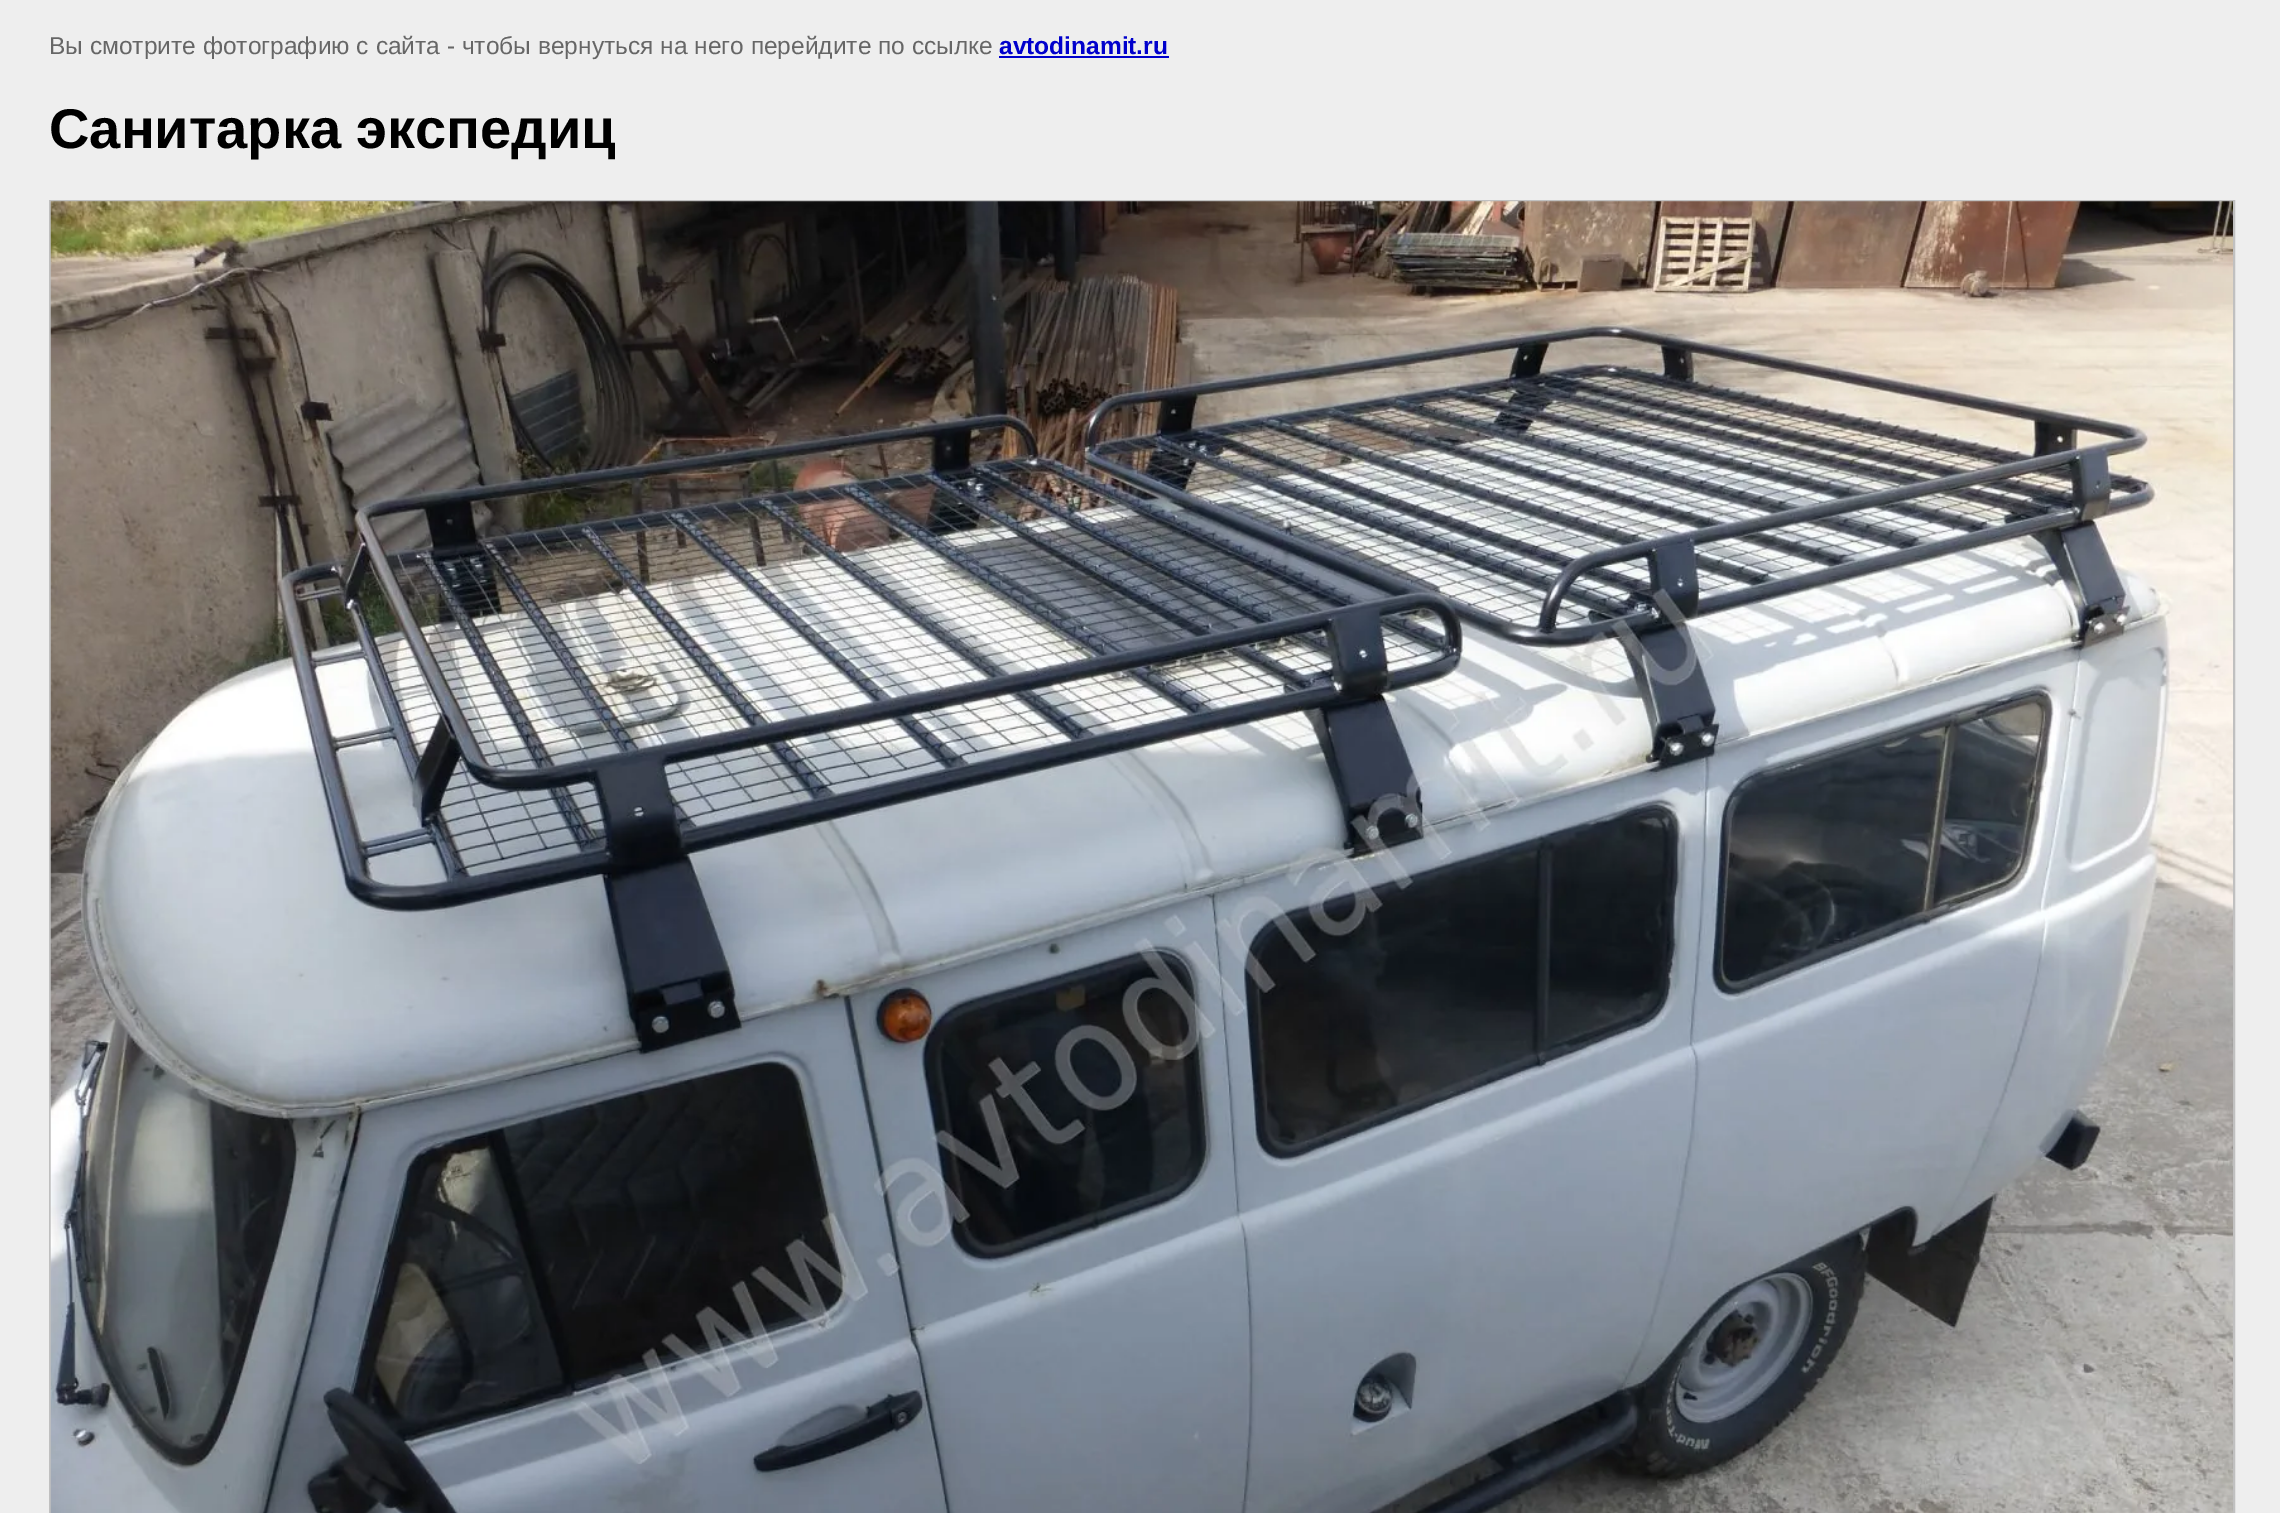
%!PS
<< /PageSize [2280 1513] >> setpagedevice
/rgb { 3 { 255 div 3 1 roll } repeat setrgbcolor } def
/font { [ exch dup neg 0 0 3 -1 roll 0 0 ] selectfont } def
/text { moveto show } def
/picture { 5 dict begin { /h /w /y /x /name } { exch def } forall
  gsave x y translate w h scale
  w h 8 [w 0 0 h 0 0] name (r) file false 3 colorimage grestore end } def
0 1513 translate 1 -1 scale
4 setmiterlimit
238 238 238 rgb
0 0 2280 1513 rectfill
0 0 204 rgb
999 56 170 2 rectfill
192 192 192 rgb
2 setlinewidth
50 201 2184 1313 rectstroke
(img_01.rgb) 50 201 2183 1312 picture
/LiberationSans-Regular 24.5 font
102 102 102 rgb
(Вы смотрите фотографию с сайта - чтобы вернуться на него перейдите по ссылке) 49 54 text
/LiberationSans-Bold 24.5 font
0 0 204 rgb
(avtodinamit.ru) 999 54 text
/LiberationSans-Bold 56 font
0 0 0 rgb
(Санитарка экспедиц) 49 148 text
showpage
